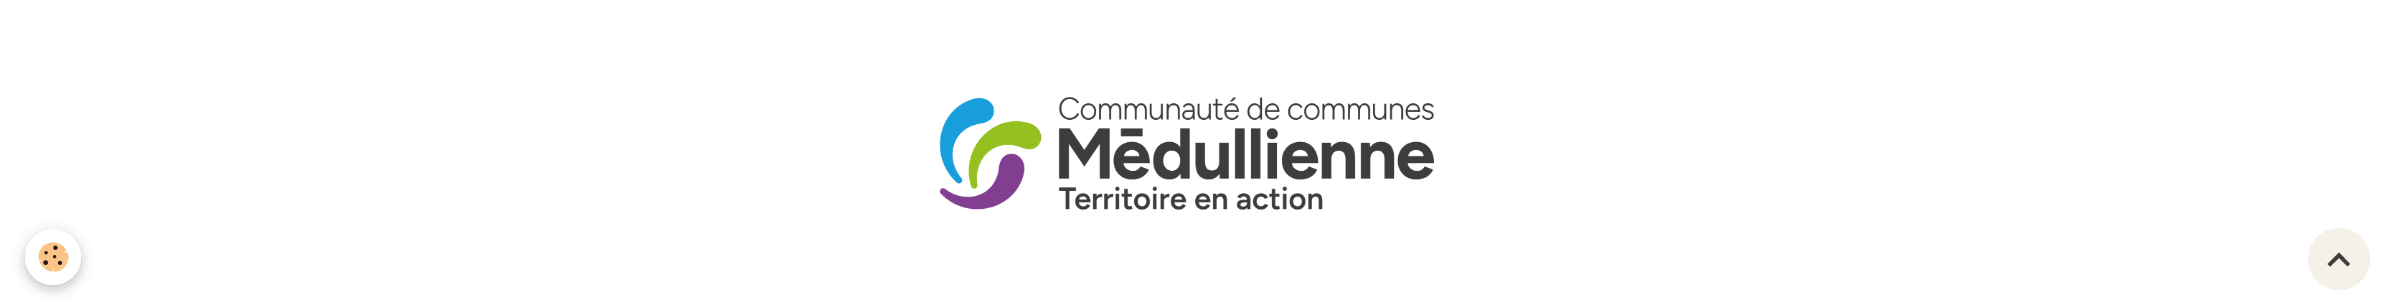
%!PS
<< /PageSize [2388 308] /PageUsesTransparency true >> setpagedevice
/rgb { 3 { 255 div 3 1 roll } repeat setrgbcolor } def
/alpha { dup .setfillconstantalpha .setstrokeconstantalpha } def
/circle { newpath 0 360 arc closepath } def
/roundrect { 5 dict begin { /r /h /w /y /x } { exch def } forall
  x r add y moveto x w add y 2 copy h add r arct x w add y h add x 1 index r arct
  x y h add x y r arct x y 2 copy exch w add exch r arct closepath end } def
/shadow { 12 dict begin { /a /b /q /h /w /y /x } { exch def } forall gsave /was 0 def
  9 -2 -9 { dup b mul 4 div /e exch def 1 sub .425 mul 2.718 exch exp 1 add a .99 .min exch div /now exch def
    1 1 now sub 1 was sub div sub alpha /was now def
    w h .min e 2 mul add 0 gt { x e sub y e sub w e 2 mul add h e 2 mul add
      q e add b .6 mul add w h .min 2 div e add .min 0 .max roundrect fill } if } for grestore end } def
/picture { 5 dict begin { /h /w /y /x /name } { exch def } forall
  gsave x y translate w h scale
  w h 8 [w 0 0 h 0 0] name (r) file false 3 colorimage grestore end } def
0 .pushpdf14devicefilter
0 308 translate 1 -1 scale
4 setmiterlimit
255 255 255 rgb
0 0 2388 308 rectfill
(img_01.rgb) 939 97 495 113 picture
0 0 0 rgb
25 233 56 56 28 6 0.24 shadow
255 255 255 rgb
53 257 28 circle fill
(img_02.rgb) 38 242 31 30 picture
245 241 233 rgb
2339 259 31 circle fill
62 62 60 rgb
2339 252.5 moveto 11 11.5 rlineto -2.5 2.5 rlineto -8.5 -8.5 rlineto -9 8.5 rlineto -2.5 -2.5 rlineto closepath fill
.poppdf14devicefilter showpage
